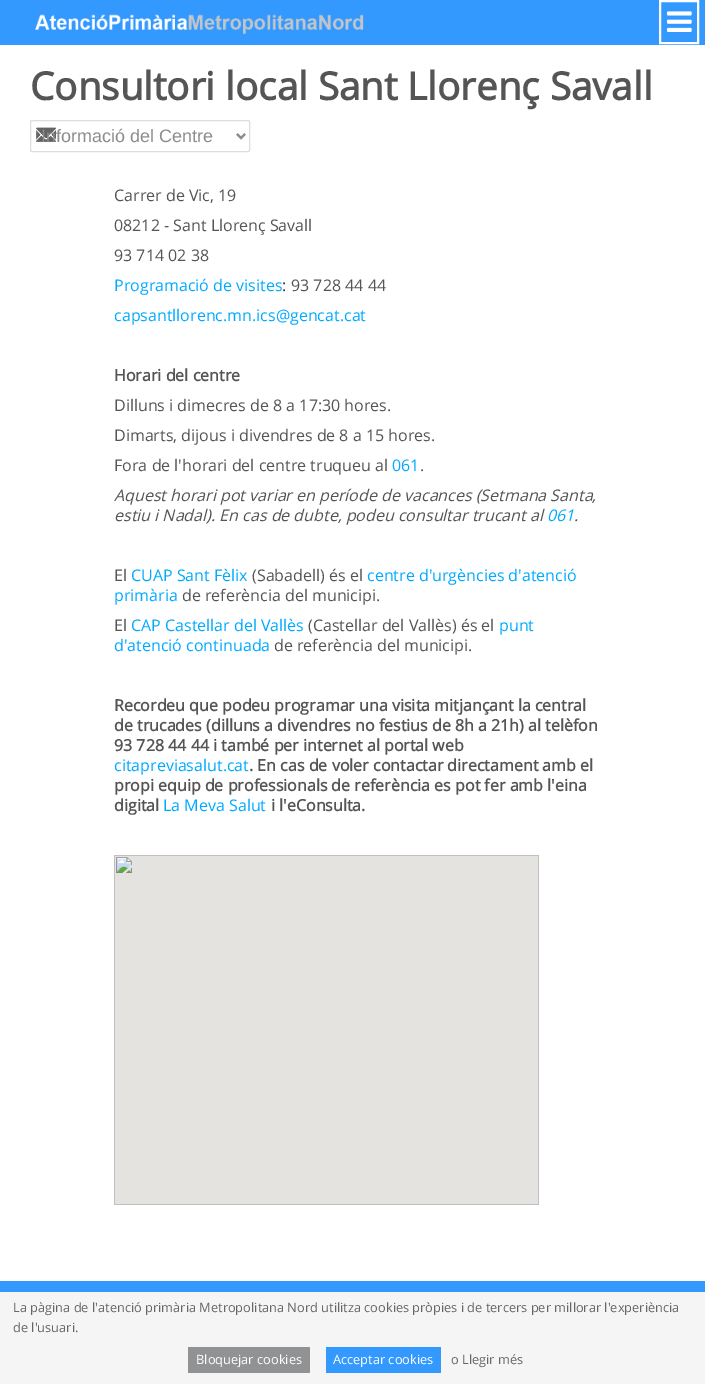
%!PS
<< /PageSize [705 1384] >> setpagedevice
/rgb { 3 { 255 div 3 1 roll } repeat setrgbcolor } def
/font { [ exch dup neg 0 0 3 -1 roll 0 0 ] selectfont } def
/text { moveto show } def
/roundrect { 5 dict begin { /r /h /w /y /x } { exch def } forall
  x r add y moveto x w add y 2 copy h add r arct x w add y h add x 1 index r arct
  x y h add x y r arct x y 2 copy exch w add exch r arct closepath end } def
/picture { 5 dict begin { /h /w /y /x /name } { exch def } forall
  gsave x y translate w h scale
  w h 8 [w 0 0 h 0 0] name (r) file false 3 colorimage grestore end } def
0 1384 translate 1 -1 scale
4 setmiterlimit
255 255 255 rgb
0 0 705 1384 rectfill
51 153 254 rgb
0 0 705 45 rectfill
(img_01.rgb) 35 14 329 20 picture
255 255 255 rgb
2 setlinewidth
660 1 38 42 rectstroke
(img_02.rgb) 667 11 25 21 picture
(img_03.rgb) 36 127 210 15 picture
221 221 221 rgb
1 setlinewidth
30.5 120.5 219 31 1.5 roundrect stroke
141 141 141 rgb
2 setlinewidth
237 134 moveto 4 4 rlineto 4 -4 rlineto stroke
(img_04.rgb) 114 855 425 350 picture
51 153 254 rgb
0 1281 705 11 rectfill
245 245 245 rgb
0 1292 705 92 rectfill
145 146 148 rgb
188 1347 122 26 rectfill
51 153 254 rgb
326 1347 115 26 rectfill
/OpenSans-Bold 38.5 font
85 85 85 rgb
(Consultori local Sant Llorenç Savall) 30 100 text
/LiberationSans-Regular 18 font
141 141 141 rgb
(Informació del Centre) 41 142 text
/OpenSans-Regular 16 font
85 85 85 rgb
(Carrer de Vic, 19) 114 201 text
(08212 - Sant Llorenç Savall) 114 231 text
(93 714 02 38) 114 261 text
0 170 255 rgb
(Programació de visites) 114 291 text
51 51 51 rgb
(:) 282 291 text
85 85 85 rgb
(93 728 44 44) 291 291 text
0 170 255 rgb
(capsantllorenc.mn.ics@gencat.cat) 114 321 text
/OpenSans-Bold 16 font
85 85 85 rgb
(Horari del centre) 114 381 text
/OpenSans-Regular 16 font
(Dilluns i dimecres de 8 a 17:30 hores.) 114 411 text
(Dimarts, dijous i divendres de 8 a 15 hores.) 114 441 text
(Fora de l'horari del centre truqueu al) 114 471 text
0 170 255 rgb
(061) 392 471 text
85 85 85 rgb
(.) 420 471 text
/OpenSans-Italic 16 font
(Aquest horari pot variar en període de vacances \(Setmana Santa,) 114 501 text
(estiu i Nadal\). En cas de dubte, podeu consultar trucant al) 114 521 text
0 170 255 rgb
(061) 547 521 text
85 85 85 rgb
(.) 574 521 text
/OpenSans-Regular 16 font
(El) 114 581 text
0 170 255 rgb
(CUAP Sant Fèlix) 131 581 text
85 85 85 rgb
(\(Sabadell\) és el) 252 581 text
0 170 255 rgb
(centre d'urgències d'atenció) 367 581 text
(primària) 114 601 text
85 85 85 rgb
(de referència del municipi.) 182 601 text
(El) 114 631 text
0 170 255 rgb
(CAP Castellar del Vallès) 131 631 text
85 85 85 rgb
(\(Castellar del Vallès\) és el) 308 631 text
0 170 255 rgb
(punt) 499 631 text
(d'atenció continuada) 114 651 text
85 85 85 rgb
(de referència del municipi.) 274 651 text
/OpenSans-Bold 16 font
(Recordeu que podeu programar una visita mitjançant la central) 114 711 text
(de trucades \(dilluns a divendres no festius de 8h a 21h\) al telèfon) 114 731 text
(93 728 44 44 i també per internet al portal web) 114 751 text
/OpenSans-Regular 16 font
0 170 255 rgb
(citapreviasalut.cat) 114 771 text
/OpenSans-Bold 16 font
85 85 85 rgb
(. En cas de voler contactar directament amb el) 249 771 text
(propi equip de professionals de referència es pot fer amb l'eina) 114 791 text
(digital) 114 811 text
/OpenSans-Regular 16 font
0 170 255 rgb
(La Meva Salut) 163 811 text
/OpenSans-Bold 16 font
85 85 85 rgb
(i l'eConsulta.) 271 811 text
/OpenSans-Regular 12.8 font
102 102 102 rgb
(La pàgina de l'atenció primària Metropolitana Nord utilitza cookies pròpies i de tercers per millorar l'experiència) 13 1312 text
(de l'usuari.) 13 1332 text
255 255 255 rgb
(Bloquejar cookies) 196 1364 text
(Acceptar cookies) 333 1364 text
102 102 102 rgb
(o Llegir més) 451 1364 text
showpage
